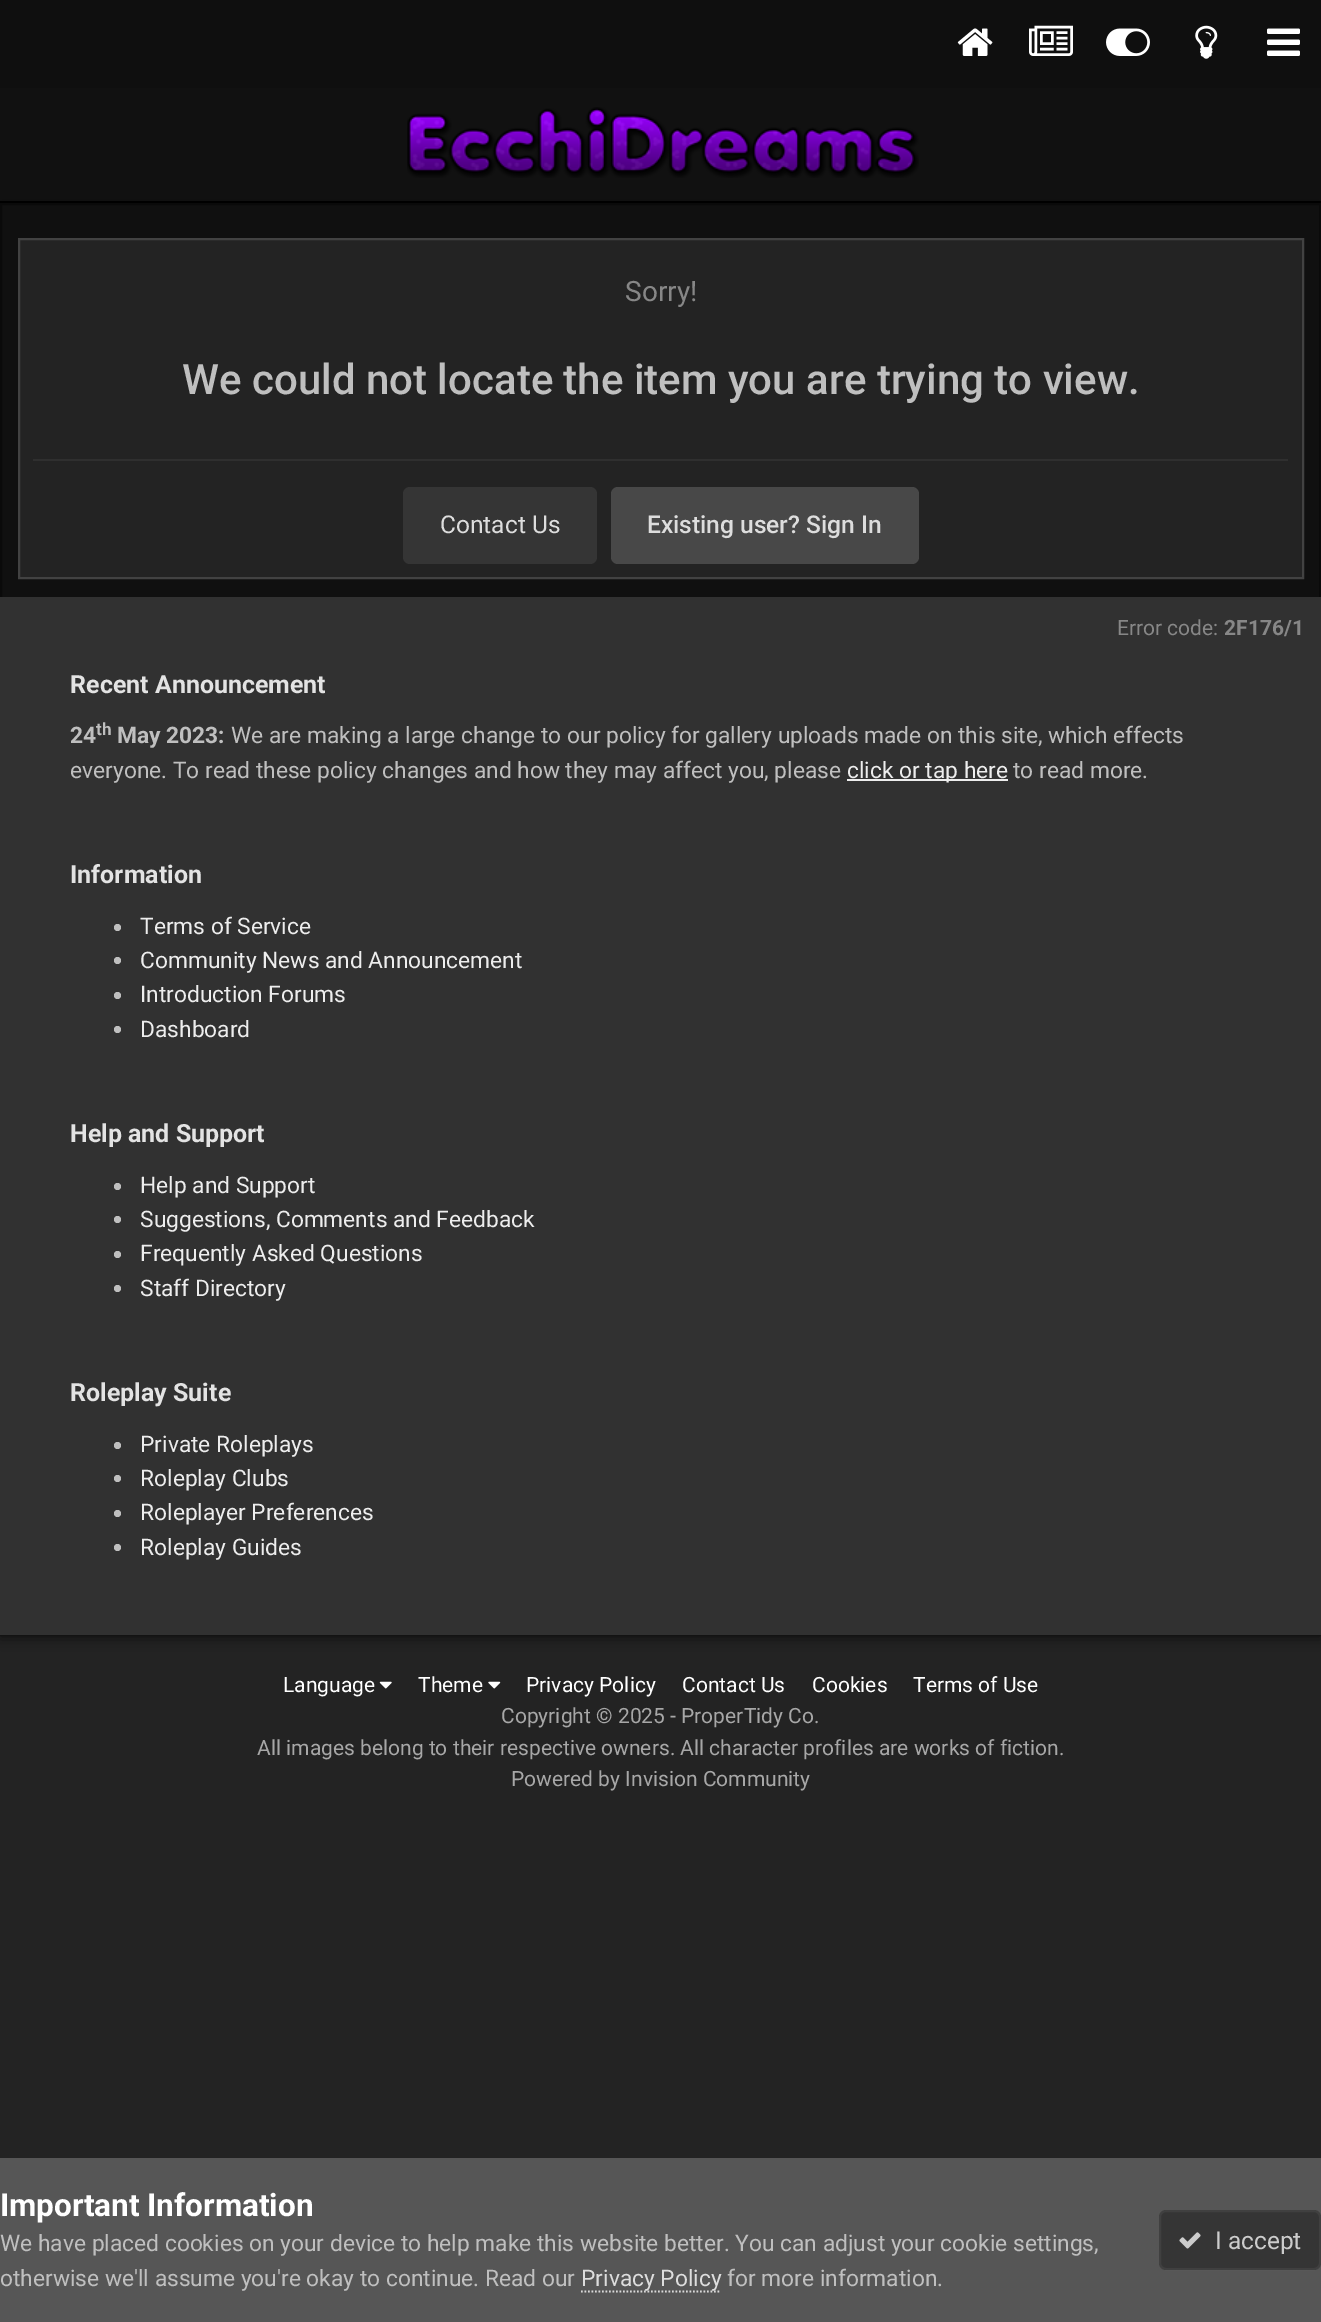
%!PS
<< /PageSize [1321 2322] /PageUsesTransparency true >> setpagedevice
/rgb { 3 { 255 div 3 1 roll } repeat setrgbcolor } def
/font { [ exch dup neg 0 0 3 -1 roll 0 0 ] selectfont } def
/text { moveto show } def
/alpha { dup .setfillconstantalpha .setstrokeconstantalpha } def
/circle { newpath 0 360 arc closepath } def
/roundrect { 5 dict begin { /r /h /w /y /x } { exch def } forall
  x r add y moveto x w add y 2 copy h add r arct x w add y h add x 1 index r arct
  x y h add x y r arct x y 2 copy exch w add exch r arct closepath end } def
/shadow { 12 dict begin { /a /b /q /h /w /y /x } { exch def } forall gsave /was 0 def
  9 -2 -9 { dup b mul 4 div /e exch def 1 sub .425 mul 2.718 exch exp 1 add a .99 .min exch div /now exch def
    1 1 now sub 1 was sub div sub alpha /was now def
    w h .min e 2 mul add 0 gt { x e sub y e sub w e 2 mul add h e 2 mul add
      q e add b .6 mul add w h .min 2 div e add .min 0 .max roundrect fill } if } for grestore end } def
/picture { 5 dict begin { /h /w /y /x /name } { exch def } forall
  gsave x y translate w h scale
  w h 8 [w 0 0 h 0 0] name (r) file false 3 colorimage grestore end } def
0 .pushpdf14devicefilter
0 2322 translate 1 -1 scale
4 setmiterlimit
35 35 35 rgb
0 0 1321 2322 rectfill
15 15 15 rgb
0 0 1321 88 rectfill
(img_01.rgb) 957 28 36 28 picture
(img_02.rgb) 1029 25 44 31 picture
(img_03.rgb) 1106 28 44 28 picture
(img_04.rgb) 1195 25 23 34 picture
(img_05.rgb) 1267 28 33 28 picture
gsave
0 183 moveto 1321 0 rlineto 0 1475 rlineto -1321 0 rlineto closepath 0 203 moveto 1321 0 rlineto 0 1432 rlineto -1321 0 rlineto closepath eoclip newpath
0 0 0 rgb
0 205 1321 1431 0 7 0.7 shadow
grestore
0.9 alpha
0 88 1321 113 rectfill
1 alpha
0 0 0 rgb
0 201 1321 2 rectfill
(img_06.rgb) 407 107 512 71 picture
0.93 alpha
15 15 15 rgb
2 205 1317 392 rectfill
1 alpha
10 10 10 rgb
2 setlinewidth
1 204 1319 1430 rectstroke
35 35 35 rgb
19 239 moveto 1284 0 rlineto 0 339 rlineto -1284 0 rlineto closepath gsave fill grestore
66 66 66 rgb
stroke
47 47 47 rgb
33 459 1255 2 rectfill
53 53 53 rgb
403 487 194 77 7 roundrect fill
72 72 72 rgb
611 487 308 77 7 roundrect fill
49 49 49 rgb
0 597 1321 1038 rectfill
237 237 237 rgb
847 779 161 2 rectfill
191 191 191 rgb
117.5 927.5 3.5 circle fill
117.5 960.5 3.5 circle fill
117.5 995.5 3.5 circle fill
117.5 1029.5 3.5 circle fill
117.5 1186.5 3.5 circle fill
117.5 1219.5 3.5 circle fill
117.5 1254.5 3.5 circle fill
117.5 1288.5 3.5 circle fill
117.5 1445.5 3.5 circle fill
117.5 1478.5 3.5 circle fill
117.5 1513.5 3.5 circle fill
117.5 1547.5 3.5 circle fill
(img_07.rgb) 379 1681 13 8 picture
(img_08.rgb) 488 1681 13 8 picture
86 86 86 rgb
0 2158 1321 164 rectfill
218 218 218 rgb
1.8 setlinewidth
[1.75 1.75] 0 setdash
581 2291.5 moveto 140 0 rlineto stroke
53 53 53 rgb
1159 2210 162 60 7 roundrect fill
0.07 alpha
204 204 204 rgb
2 setlinewidth
[] 0 setdash
1160 2211 160 58 6 roundrect stroke
1 alpha
(img_09.rgb) 1179 2232 22 17 picture
/Roboto-Regular 28 font
135 135 135 rgb
(Sorry!) 625 301 text
/Roboto-Medium 42 font
191 191 191 rgb
(We could not locate the item you are trying to view.) 182 394 text
/Roboto-Regular 24.5 font
221 221 221 rgb
(Contact Us) 440 533 text
/Roboto-Medium 24.5 font
(Existing user? Sign In) 647 533 text
/Roboto-Regular 21 font
135 135 135 rgb
(Error code:) 1117 635 text
/Roboto-Bold 21 font
(2F176/1) 1224 635 text
/Roboto-Bold 25 font
227 227 227 rgb
(Recent Announcement) 70 693 text
/Roboto-Bold 22.75 font
191 191 191 rgb
(24) 70 743 text
/Roboto-Bold 17 font
(th) 96 735 text
/Roboto-Bold 22.75 font
(May 2023:) 117 743 text
/Roboto-Regular 22.75 font
(We are making a large change to our policy for gallery uploads made on this site, which effects) 231 743 text
(everyone. To read these policy changes and how they may affect you, please) 70 778 text
237 237 237 rgb
(click or tap here) 847 778 text
191 191 191 rgb
(to read more.) 1013 778 text
/Roboto-Bold 25 font
227 227 227 rgb
(Information) 70 883 text
/Roboto-Regular 22.75 font
237 237 237 rgb
(Terms of Service) 140 934 text
(Community News and Announcement) 140 968 text
(Introduction Forums) 140 1002 text
(Dashboard) 140 1037 text
/Roboto-Bold 25 font
227 227 227 rgb
(Help and Support) 70 1142 text
/Roboto-Regular 22.75 font
237 237 237 rgb
(Help and Support) 140 1193 text
(Suggestions, Comments and Feedback) 140 1227 text
(Frequently Asked Questions) 140 1261 text
(Staff Directory) 140 1296 text
/Roboto-Bold 25 font
227 227 227 rgb
(Roleplay Suite) 70 1401 text
/Roboto-Regular 22.75 font
237 237 237 rgb
(Private Roleplays) 140 1452 text
(Roleplay Clubs) 140 1486 text
(Roleplayer Preferences) 140 1520 text
(Roleplay Guides) 140 1555 text
/Roboto-Regular 21 font
255 255 255 rgb
(Language) 283 1692 text
(Theme) 418 1692 text
(Privacy Policy) 526 1692 text
(Contact Us) 682 1692 text
(Cookies) 812 1692 text
(Terms of Use) 913 1692 text
167 167 167 rgb
(Copyright © 2025 - ProperTidy Co.) 501 1723 text
(All images belong to their respective owners. All character profiles are works of fiction.) 257 1755 text
(Powered by Invision Community) 511 1786 text
/Roboto-Bold 31.5 font
255 255 255 rgb
(Important Information) 0 2216 text
/Roboto-Regular 22.75 font
191 191 191 rgb
(We have placed cookies on your device to help make this website better. You can adjust your cookie settings,) 0 2251 text
(otherwise we'll assume you're okay to continue. Read our) 0 2286 text
221 221 221 rgb
(Privacy Policy) 581 2286 text
191 191 191 rgb
(for more information.) 727 2286 text
/Roboto-Regular 24.5 font
204 204 204 rgb
(I accept) 1215 2249 text
.poppdf14devicefilter showpage
